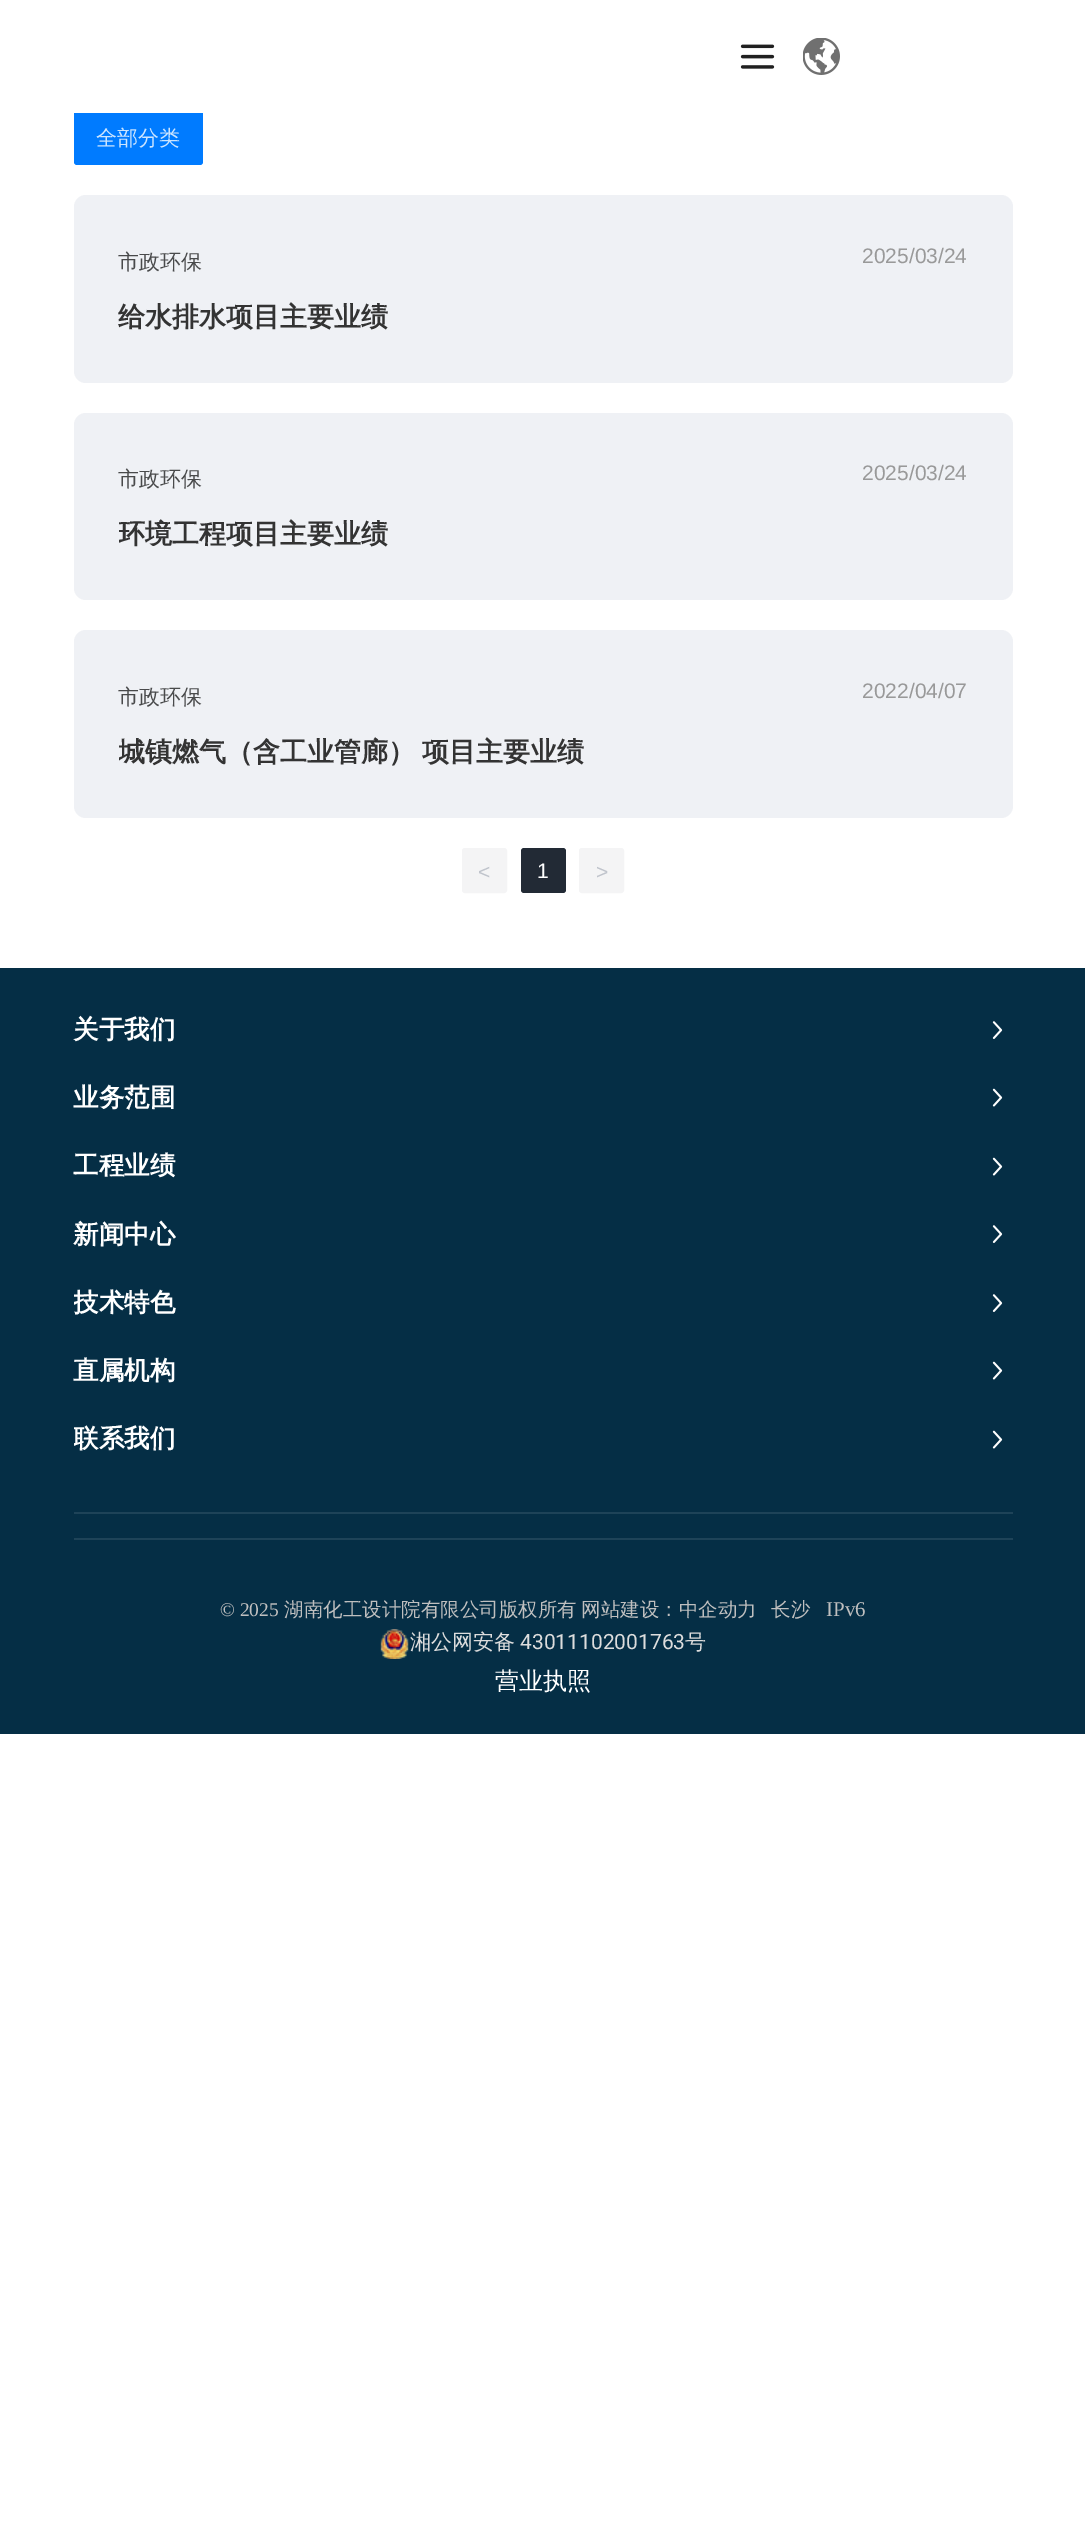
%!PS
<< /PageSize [1085 2547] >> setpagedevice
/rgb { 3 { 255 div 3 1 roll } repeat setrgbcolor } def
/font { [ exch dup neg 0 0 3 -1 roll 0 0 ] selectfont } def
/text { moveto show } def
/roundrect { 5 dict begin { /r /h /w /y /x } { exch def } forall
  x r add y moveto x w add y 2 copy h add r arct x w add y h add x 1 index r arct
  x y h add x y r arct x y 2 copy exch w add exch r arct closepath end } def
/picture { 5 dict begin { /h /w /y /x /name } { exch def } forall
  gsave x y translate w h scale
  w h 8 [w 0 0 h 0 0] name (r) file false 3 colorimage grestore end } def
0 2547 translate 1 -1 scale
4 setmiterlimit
255 255 255 rgb
0 0 1085 2547 rectfill
0 123 255 rgb
74 111 129 54 3 roundrect fill
255 255 255 rgb
74 111 129 2 rectfill
(img_01.rgb) 740 44 35 25 picture
(img_02.rgb) 803 38 37 37 picture
239 241 245 rgb
74 195 939 188 12 roundrect fill
74 413 939 187 12 roundrect fill
74 630 939 188 12 roundrect fill
244 244 245 rgb
463 849 43 43 2 roundrect gsave fill grestore
2 setlinewidth
stroke
34 42 53 rgb
521 848 45 45 3 roundrect fill
244 244 245 rgb
580 849 43 43 2 roundrect gsave fill grestore
stroke
5 46 69 rgb
0 968 1085 766 rectfill
(img_03.rgb) 992 1021 11 18 picture
(img_04.rgb) 992 1088 11 19 picture
(img_04.rgb) 992 1157 11 19 picture
(img_03.rgb) 992 1225 11 18 picture
(img_03.rgb) 992 1294 11 18 picture
(img_04.rgb) 992 1361 11 19 picture
(img_04.rgb) 992 1430 11 19 picture
30 67 88 rgb
74 1512 939 2 rectfill
74 1538 939 2 rectfill
(img_05.rgb) 380 1629 29 30 picture
/WenQuanYiZenHei-Medium 21 font
204 229 255 rgb
(全部分类) 96 145 text
73 74 75 rgb
(市政环保) 118 269 text
/LiberationSans-Regular 21 font
153 153 153 rgb
(2025/03/24) 862 263 text
/WenQuanYiZenHei-Bold 27 font
51 51 51 rgb
(给水排水项目主要业绩) 118 326 text
/WenQuanYiZenHei-Medium 21 font
73 74 75 rgb
(市政环保) 118 486 text
/LiberationSans-Regular 21 font
153 153 153 rgb
(2025/03/24) 862 480 text
gsave
119 515 849 40 rectclip
/WenQuanYiZenHei-Bold 27 font
51 51 51 rgb
(环境工程项目主要业绩) 118 543 text
grestore
/WenQuanYiZenHei-Medium 21 font
73 74 75 rgb
(市政环保) 118 704 text
/LiberationSans-Regular 21 font
153 153 153 rgb
(2022/04/07) 862 698 text
gsave
119 732 849 41 rectclip
/WenQuanYiZenHei-Bold 27 font
51 51 51 rgb
118 761 moveto -1 0 32 (城镇燃气（含工业管廊） 项目主要业绩) widthshow
grestore
192 196 204 rgb
(<) 478 879 text
255 255 255 rgb
(1) 537 878 text
192 196 204 rgb
(>) 596 879 text
/WenQuanYiZenHei-Bold 25.5 font
255 255 255 rgb
(关于我们) 73 1038 text
(业务范围) 73 1106 text
(工程业绩) 73 1174 text
(新闻中心) 73 1243 text
gsave
74 1284 102 38 rectclip
(技术特色) 73 1311 text
grestore
(直属机构) 73 1379 text
gsave
74 1421 102 37 rectclip
(联系我们) 73 1447 text
grestore
/LiberationSerif-Regular 19.5 font
191 191 191 rgb
(© 2025) 220 1616 text
/WenQuanYiZenHei-Medium 19.5 font
(湖南化工设计院有限公司版权所有) 284 1616 text
(网站建设：中企动力) 581 1616 text
(长沙) 771 1616 text
/LiberationSerif-Regular 21 font
(IPv6) 826 1616 text
/WenQuanYiZenHei-Medium 21 font
221 221 221 rgb
(湘公网安备) 410 1649 text
/Roboto-Regular 21 font
(43011102001763) 520 1649 text
/WenQuanYiZenHei-Medium 21 font
(号) 685 1649 text
/WenQuanYiZenHei-Medium 24 font
255 255 255 rgb
(营业执照) 495 1689 text
showpage
